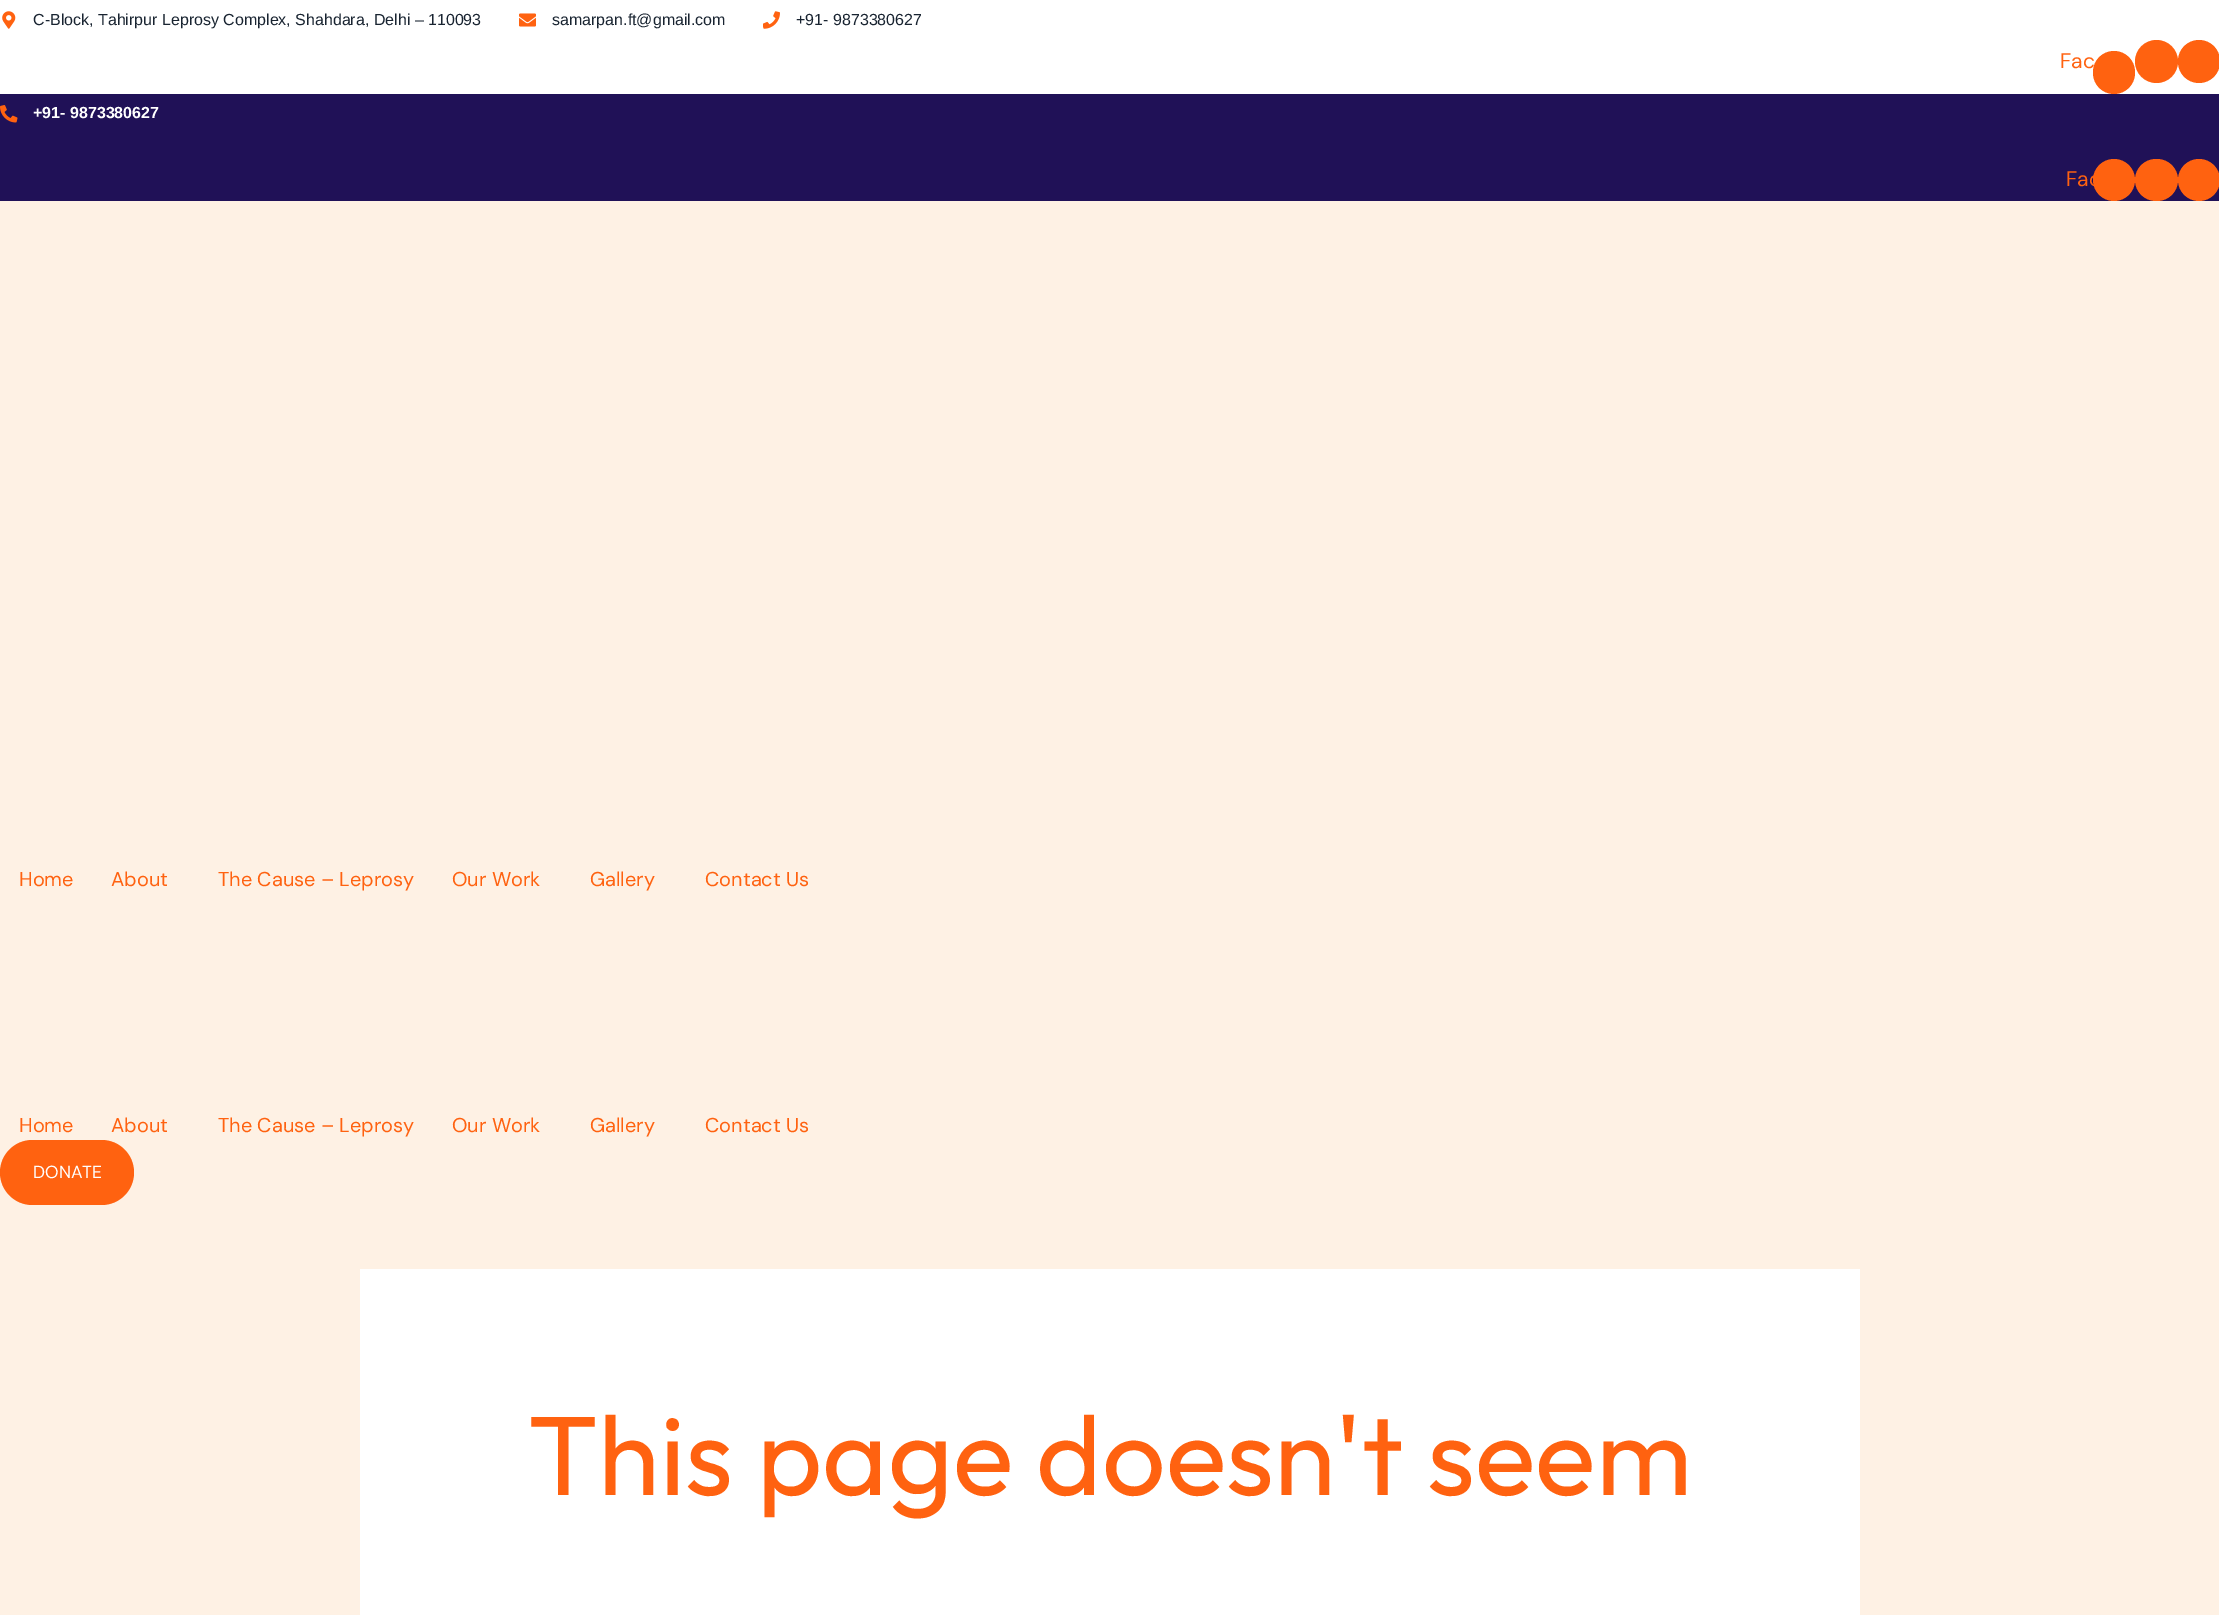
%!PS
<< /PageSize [2219 1615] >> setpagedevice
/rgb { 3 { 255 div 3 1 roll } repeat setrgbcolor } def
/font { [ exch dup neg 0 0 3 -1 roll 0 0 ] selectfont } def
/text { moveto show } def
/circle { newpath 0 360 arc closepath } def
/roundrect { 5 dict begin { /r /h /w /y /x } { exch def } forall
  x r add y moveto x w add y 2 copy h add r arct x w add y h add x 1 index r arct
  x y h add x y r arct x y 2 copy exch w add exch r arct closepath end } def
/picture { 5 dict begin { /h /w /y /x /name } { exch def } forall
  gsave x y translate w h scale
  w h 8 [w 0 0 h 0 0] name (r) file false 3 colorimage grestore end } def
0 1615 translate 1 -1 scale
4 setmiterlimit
254 241 228 rgb
0 0 2219 1615 rectfill
255 255 255 rgb
0 0 2219 94 rectfill
(img_01.rgb) 2 11 14 18 picture
(img_02.rgb) 519 13 17 14 picture
(img_03.rgb) 763 11 17 18 picture
255 98 16 rgb
2093 51 42 43 21 roundrect fill
2156.5 61.5 21.5 circle fill
2178 40 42 43 21 roundrect fill
32 17 87 rgb
0 94 2219 107 rectfill
(img_04.rgb) 0 105 18 18 picture
255 98 16 rgb
2114 180 21 circle fill
2135 159 43 42 21 roundrect fill
2199 180 21 circle fill
0 1140 134 65 32.5 roundrect fill
255 255 255 rgb
360 1269 1500 346 rectfill
/LiberationSans-Regular 16 font
25 36 49 rgb
(C-Block, Tahirpur Leprosy Complex, Shahdara, Delhi – 110093) 33 25 text
(samarpan.ft@gmail.com) 552 25 text
(+91- 9873380627) 796 25 text
/DMSans-Regular 21 font
255 98 16 rgb
(Fac) 2060 68 text
/LiberationSans-Bold 16 font
255 255 255 rgb
(+91- 9873380627) 33 118 text
/DMSans-Regular 21 font
255 98 16 rgb
(Fac) 2066 186 text
/DMSans-Regular 20 font
(Home) 19 886 text
(About) 111 886 text
(The Cause – Leprosy) 218 886 text
(Our Work) 452 886 text
(Gallery) 590 886 text
(Contact Us) 705 886 text
(Home) 19 1132 text
(About) 111 1132 text
(The Cause – Leprosy) 218 1132 text
(Our Work) 452 1132 text
(Gallery) 590 1132 text
(Contact Us) 705 1132 text
/DMSans-Regular 17.5 font
255 255 255 rgb
(DONATE) 33 1178 text
/Outfit-Regular 112.5 font
255 98 16 rgb
(This page doesn't seem) 528 1495 text
showpage
